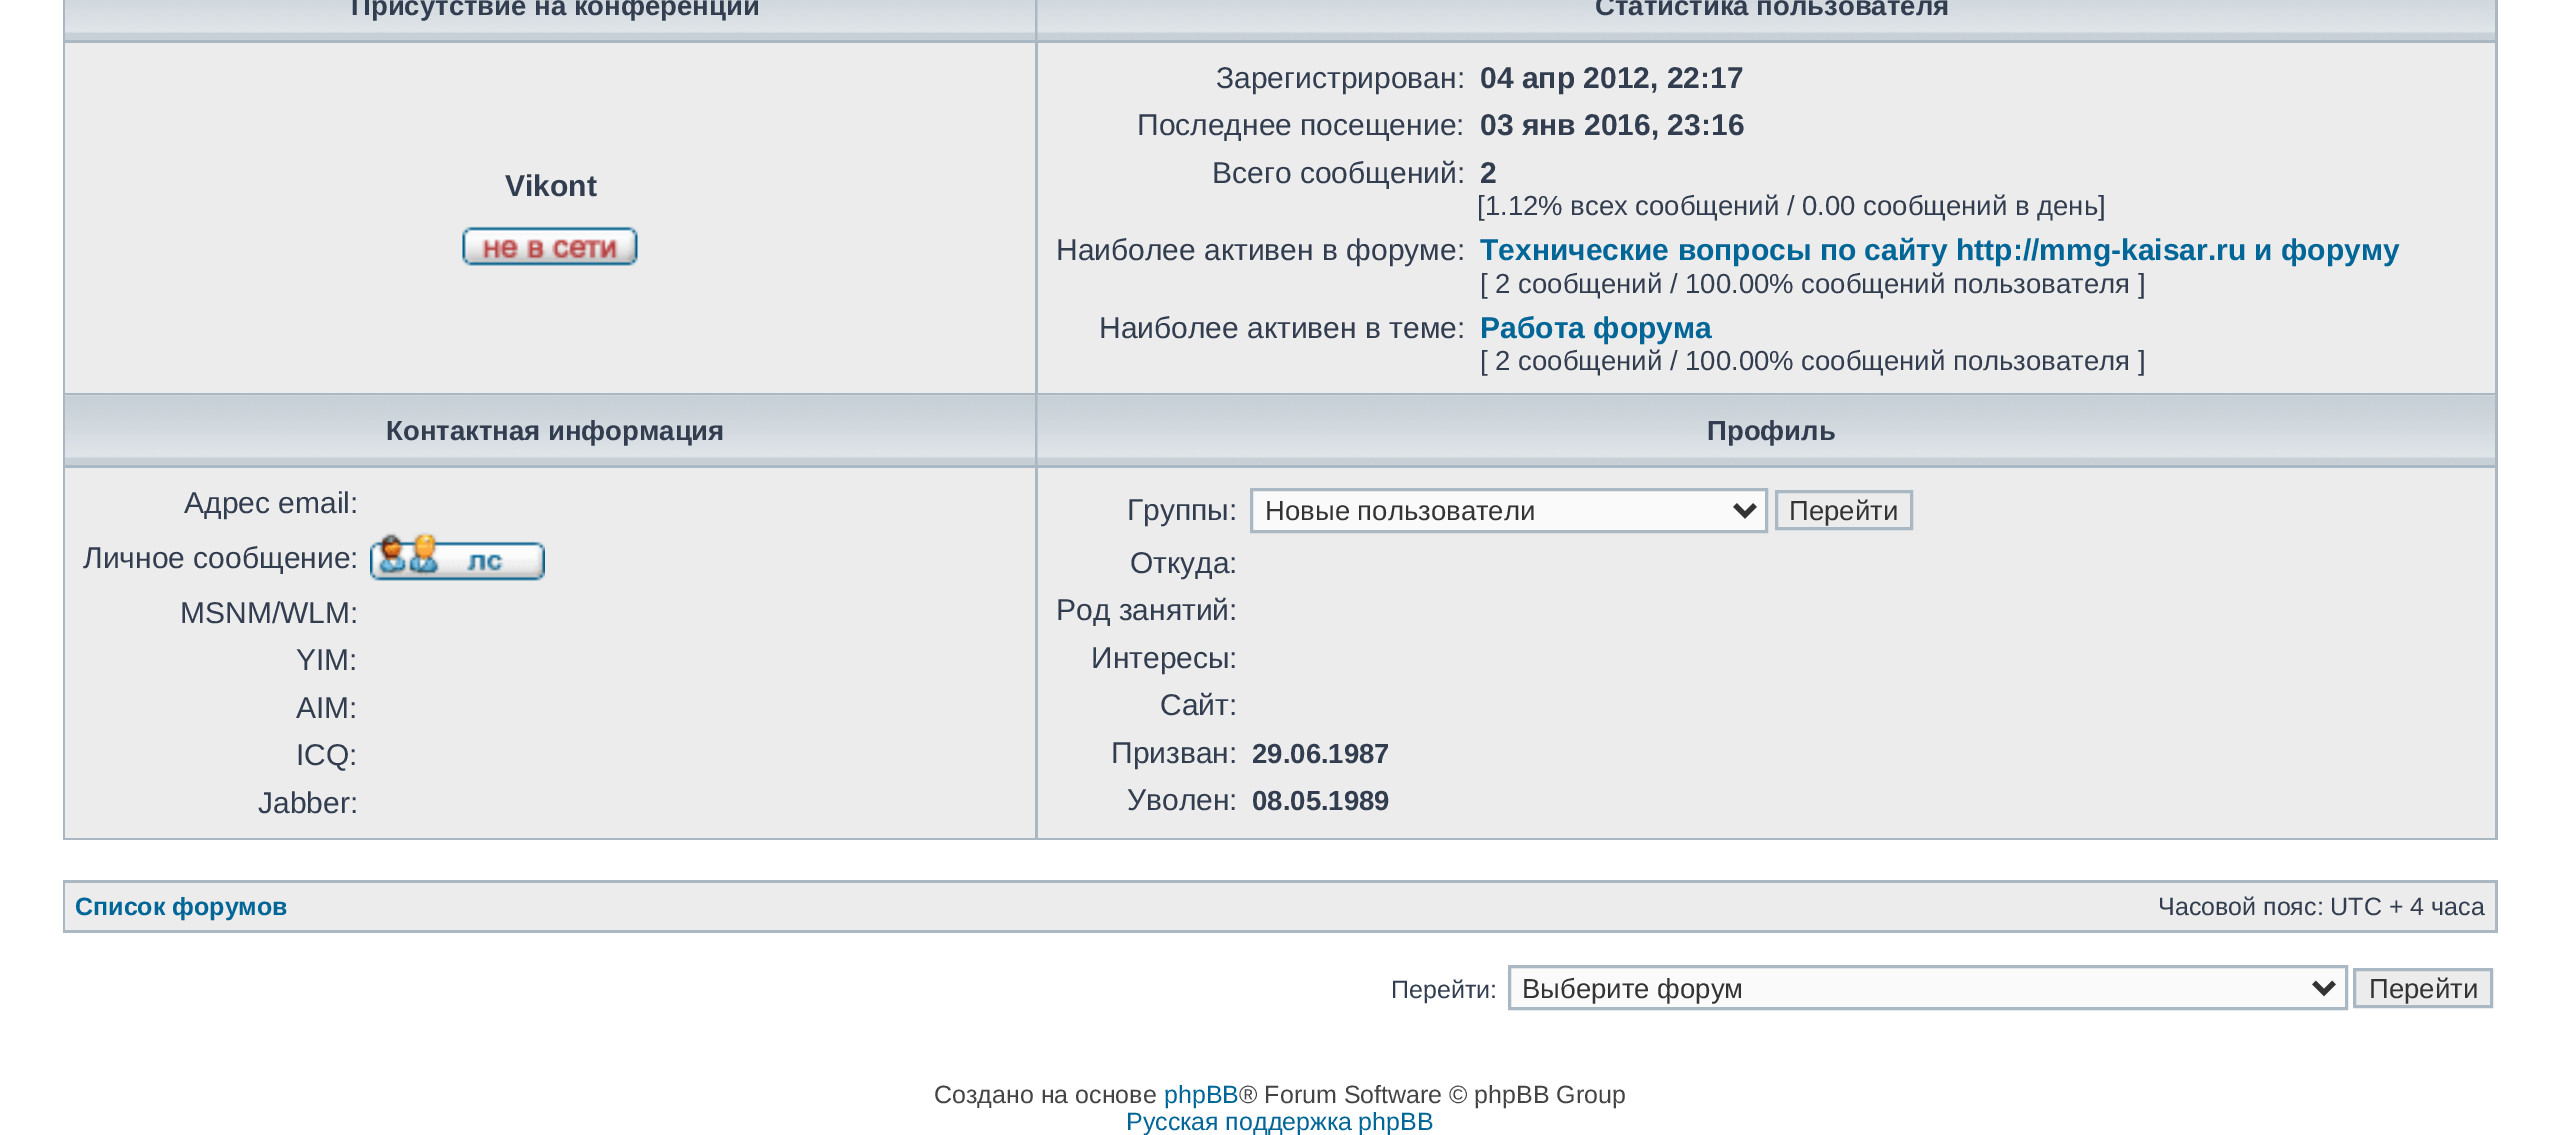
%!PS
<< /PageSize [2558 1135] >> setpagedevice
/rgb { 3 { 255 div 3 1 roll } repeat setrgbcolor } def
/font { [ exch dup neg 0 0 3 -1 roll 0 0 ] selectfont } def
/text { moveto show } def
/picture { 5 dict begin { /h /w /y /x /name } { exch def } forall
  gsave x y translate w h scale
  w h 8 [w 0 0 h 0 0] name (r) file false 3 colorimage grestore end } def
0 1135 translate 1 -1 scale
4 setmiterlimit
255 255 255 rgb
0 0 2558 1135 rectfill
169 184 194 rgb
63 0 2435 840 rectfill
199 208 215 rgb
65 33 970 7 rectfill
(img_01.rgb) 65 0 970 33 picture
(img_02.rgb) 1037 0 1458 40 picture
236 236 236 rgb
65 43 970 350 rectfill
(img_03.rgb) 462 226 176 40 picture
1038 43 1457 350 rectfill
199 208 215 rgb
65 458 970 7 rectfill
(img_04.rgb) 65 395 970 63 picture
(img_05.rgb) 1037 395 1458 70 picture
236 236 236 rgb
65 468 970 370 rectfill
(img_06.rgb) 370 532 175 49 picture
1038 468 1457 370 rectfill
250 250 250 rgb
1251.5 489.5 moveto 515 0 rlineto 0 42 rlineto -515 0 rlineto closepath gsave fill grestore
169 184 194 rgb
3 setlinewidth
stroke
51 51 51 rgb
5 setlinewidth
1735 505 moveto 10 10 rlineto 10 -10 rlineto stroke
169 184 194 rgb
3 setlinewidth
1776.5 491.5 135 37 rectstroke
63 880 2435 53 rectfill
236 236 236 rgb
65 883 2430 47 rectfill
250 250 250 rgb
1509.5 966.5 moveto 837 0 rlineto 0 42 rlineto -837 0 rlineto closepath gsave fill grestore
169 184 194 rgb
stroke
51 51 51 rgb
5 setlinewidth
2314 982.5 moveto 10 10 rlineto 10 -10 rlineto stroke
236 236 236 rgb
2354.5 969.5 moveto 137 0 rlineto 0 37 rlineto -137 0 rlineto closepath gsave fill grestore
169 184 194 rgb
3 setlinewidth
stroke
/LiberationSans-Bold 27.5 font
50 61 79 rgb
(Присутствие на конференции) 351 15 text
(Статистика пользователя) 1595 15 text
/LiberationSans-Bold 30 font
(Vikont) 505 196 text
/LiberationSans-Regular 30 font
(Зарегистрирован:) 1216 88 text
/LiberationSans-Bold 30 font
(04 апр 2012, 22:17) 1480 88 text
/LiberationSans-Regular 30 font
(Последнее посещение:) 1137 135 text
/LiberationSans-Bold 30 font
(03 янв 2016, 23:16) 1480 135 text
/LiberationSans-Regular 30 font
(Всего сообщений:) 1212 183 text
/LiberationSans-Bold 30 font
(2) 1480 183 text
/LiberationSans-Regular 27.5 font
([1.12% всех сообщений / 0.00 сообщений в день]) 1477 215 text
/LiberationSans-Regular 30 font
(Наиболее активен в форуме:) 1056 260 text
/LiberationSans-Bold 30 font
0 101 151 rgb
(Технические вопросы по сайту http://mmg-kaisar.ru и форуму) 1480 260 text
/LiberationSans-Regular 27.5 font
50 61 79 rgb
([ 2 сообщений / 100.00% сообщений пользователя ]) 1480 293 text
/LiberationSans-Regular 30 font
(Наиболее активен в теме:) 1099 338 text
/LiberationSans-Bold 30 font
0 101 151 rgb
(Работа форума) 1480 338 text
/LiberationSans-Regular 27.5 font
50 61 79 rgb
([ 2 сообщений / 100.00% сообщений пользователя ]) 1480 370 text
/LiberationSans-Bold 27.5 font
(Контактная информация) 386 440 text
(Профиль) 1707 440 text
/LiberationSans-Regular 30 font
(Адрес email:) 184 513 text
(Личное сообщение:) 83 568 text
(MSNM/WLM:) 180 623 text
(YIM:) 296 670 text
(AIM:) 296 718 text
(ICQ:) 296 765 text
(Jabber:) 258 813 text
(Группы:) 1127 520 text
/LiberationSans-Regular 27.5 font
51 51 51 rgb
(Новые пользователи) 1265 520 text
(Перейти) 1789 520 text
/LiberationSans-Regular 30 font
50 61 79 rgb
(Откуда:) 1130 573 text
(Род занятий:) 1056 620 text
(Интересы:) 1091 668 text
(Сайт:) 1160 715 text
(Призван:) 1111 763 text
/LiberationSans-Bold 27.5 font
(29.06.1987) 1252 763 text
/LiberationSans-Regular 30 font
(Уволен:) 1127 810 text
/LiberationSans-Bold 27.5 font
(08.05.1989) 1252 810 text
/LiberationSans-Bold 25 font
0 101 151 rgb
(Список форумов) 75 915 text
/LiberationSans-Regular 25 font
50 61 79 rgb
(Часовой пояс: UTC + 4 часа) 2158 915 text
(Перейти:) 1391 998 text
/LiberationSans-Regular 27.5 font
51 51 51 rgb
(Выберите форум) 1522 998 text
(Перейти) 2369 998 text
/LiberationSans-Regular 25 font
68 68 68 rgb
(Создано на основе) 934 1103 text
0 101 151 rgb
(phpBB) 1164 1103 text
68 68 68 rgb
(® Forum Software © phpBB Group) 1239 1103 text
0 101 151 rgb
(Русская поддержка phpBB) 1126 1130 text
showpage
